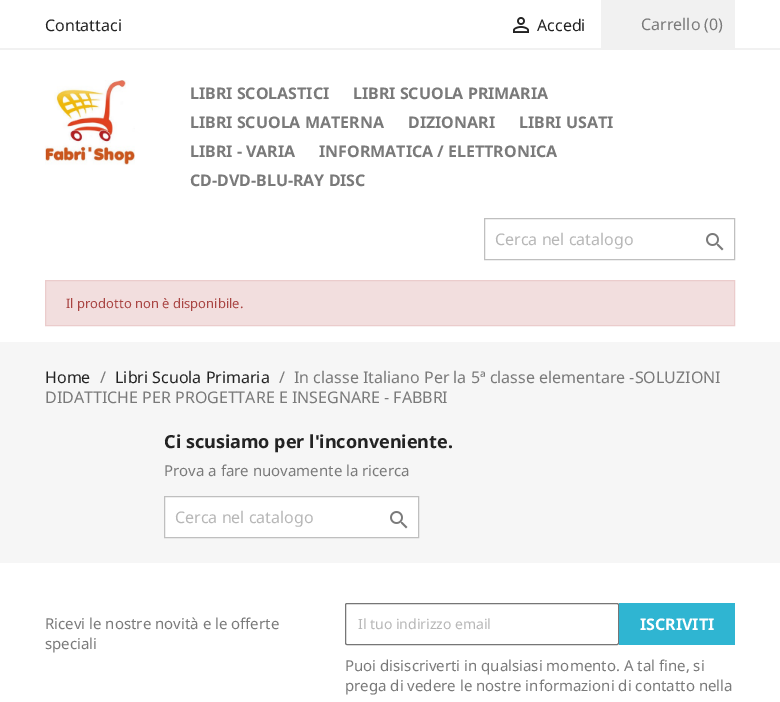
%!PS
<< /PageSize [780 702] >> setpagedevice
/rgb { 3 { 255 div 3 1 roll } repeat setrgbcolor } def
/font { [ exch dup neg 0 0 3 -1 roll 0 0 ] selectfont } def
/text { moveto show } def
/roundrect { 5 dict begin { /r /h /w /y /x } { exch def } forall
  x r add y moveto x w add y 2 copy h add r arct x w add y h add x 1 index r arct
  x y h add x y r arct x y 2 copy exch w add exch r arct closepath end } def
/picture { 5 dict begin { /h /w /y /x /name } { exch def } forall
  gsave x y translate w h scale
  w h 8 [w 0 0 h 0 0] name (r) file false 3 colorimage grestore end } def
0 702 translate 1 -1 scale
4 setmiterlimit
255 255 255 rgb
0 0 780 702 rectfill
241 241 241 rgb
0 48 780 2 rectfill
(img_01.rgb) 513 17 16 16 picture
601 0 134 48 rectfill
(img_02.rgb) 45 80 90 85 picture
191 191 191 rgb
484.5 218.5 250 41 rectstroke
(img_03.rgb) 706 233 18 18 picture
242 222 222 rgb
45.5 280.5 moveto 689 0 rlineto 0 45 rlineto -689 0 rlineto closepath gsave fill grestore
235 204 204 rgb
stroke
246 246 246 rgb
0 342 780 221 rectfill
255 255 255 rgb
164.5 496.5 moveto 254 0 rlineto 0 41 rlineto -254 0 rlineto closepath gsave fill grestore
191 191 191 rgb
stroke
(img_03.rgb) 390 511 18 18 picture
118 118 118 rgb
345.5 603.5 273 41 1.5 roundrect stroke
47 181 210 rgb
619 603 116 42 rectfill
/NotoSans-Regular 16 font
35 35 35 rgb
(Contattaci) 45 31 text
(Accedi) 537 31 text
122 122 122 rgb
(Carrello \(0\)) 641 30 text
/NotoSans-Bold 16 font
(LIBRI SCOLASTICI) 190 99 text
(LIBRI SCUOLA PRIMARIA) 353 99 text
(LIBRI SCUOLA MATERNA) 190 128 text
(DIZIONARI) 408 128 text
(LIBRI USATI) 519 128 text
(LIBRI - VARIA) 190 157 text
(INFORMATICA / ELETTRONICA) 319 157 text
(CD-DVD-BLU-RAY DISC) 190 186 text
/NotoSans-Regular 16 font
183 183 183 rgb
(Cerca nel catalogo) 495 245 text
/NotoSans-Regular 13 font
169 68 66 rgb
(Il prodotto non è disponibile.) 66 308 text
/NotoSans-Regular 16 font
35 35 35 rgb
(Home) 45 383 text
122 122 122 rgb
(/) 100 383 text
35 35 35 rgb
(Libri Scuola Primaria) 115 383 text
122 122 122 rgb
(/) 279 383 text
(In classe Italiano Per la 5ª classe elementare -SOLUZIONI) 294 383 text
(DIDATTICHE PER PROGETTARE E INSEGNARE - FABBRI) 45 403 text
/NotoSans-Bold 18 font
35 35 35 rgb
(Ci scusiamo per l'inconveniente.) 164 448 text
/NotoSans-Regular 15 font
122 122 122 rgb
(Prova a fare nuovamente la ricerca) 164 476 text
/NotoSans-Regular 16 font
183 183 183 rgb
(Cerca nel catalogo) 175 523 text
/NotoSans-Regular 15 font
122 122 122 rgb
(Ricevi le nostre novità e le offerte) 45 629 text
(speciali) 45 649 text
/NotoSans-Regular 14 font
183 183 183 rgb
(Il tuo indirizzo email) 358 629 text
/NotoSans-Bold 16 font
255 255 255 rgb
(ISCRIVITI) 640 630 text
/NotoSans-Regular 15 font
122 122 122 rgb
(Puoi disiscriverti in qualsiasi momento. A tal fine, si) 345 671 text
(prega di vedere le nostre informazioni di contatto nella) 345 691 text
showpage
